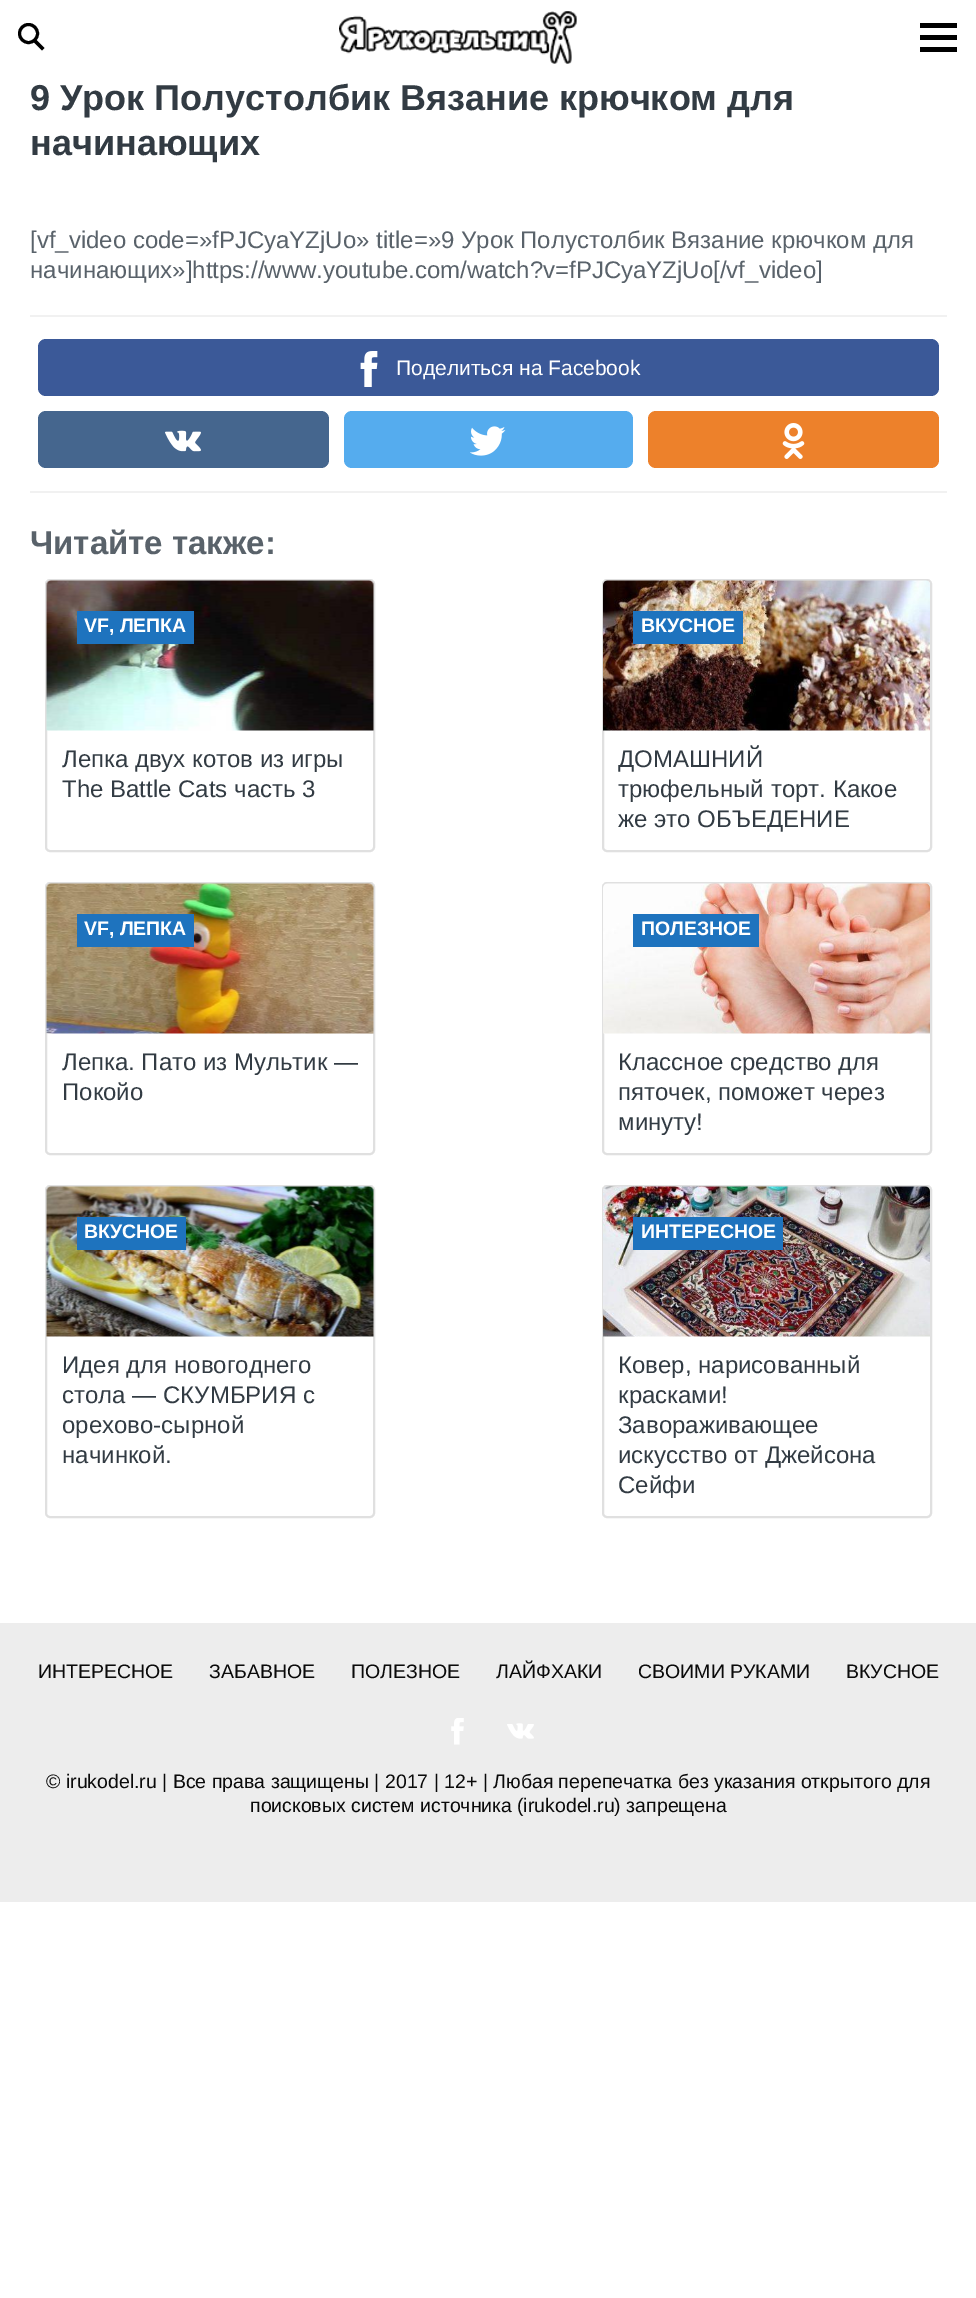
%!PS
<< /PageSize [976 2298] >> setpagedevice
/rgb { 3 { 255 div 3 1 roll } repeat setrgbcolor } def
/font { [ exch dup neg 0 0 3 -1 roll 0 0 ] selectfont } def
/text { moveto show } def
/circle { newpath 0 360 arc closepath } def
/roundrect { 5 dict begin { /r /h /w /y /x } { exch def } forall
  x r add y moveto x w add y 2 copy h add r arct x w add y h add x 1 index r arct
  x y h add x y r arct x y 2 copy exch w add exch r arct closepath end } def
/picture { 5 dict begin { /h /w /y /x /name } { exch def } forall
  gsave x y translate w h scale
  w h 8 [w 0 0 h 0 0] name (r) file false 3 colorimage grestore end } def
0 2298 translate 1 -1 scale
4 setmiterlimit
255 255 255 rgb
0 0 976 2298 rectfill
0 0 0 rgb
3 setlinewidth
28.5 33.5 9 circle stroke
36 39.5 moveto 8.5 8.5 rlineto -2.5 2.5 rlineto -8.5 -8.5 rlineto closepath fill
(img_01.rgb) 339 11 238 53 picture
920 23 37 5 rectfill
920 35 37 5 rectfill
920 47 37 5 rectfill
241 241 241 rgb
30 315 917 2 rectfill
30 491 917 2 rectfill
59 89 152 rgb
38 339 901 57 8 roundrect fill
(img_02.rgb) 360 351 18 36 picture
69 102 142 rgb
38 411 291 57 8 roundrect fill
(img_03.rgb) 165 430 36 22 picture
85 172 238 rgb
344 411 289 57 8 roundrect fill
(img_04.rgb) 470 426 36 30 picture
237 129 43 rgb
648 411 291 57 8 roundrect fill
(img_05.rgb) 782 423 23 36 picture
224 224 224 rgb
2 setlinewidth
46 580 328 271 4 roundrect stroke
(img_06.rgb) 46 580 328 151 picture
30 115 190 rgb
77 611 117 33 rectfill
224 224 224 rgb
603 580 328 271 4 roundrect stroke
(img_07.rgb) 603 580 327 151 picture
30 115 190 rgb
633 611 110 33 rectfill
224 224 224 rgb
46 883 328 271 4 roundrect stroke
(img_08.rgb) 46 883 328 151 picture
30 115 190 rgb
77 914 117 33 rectfill
224 224 224 rgb
603 883 328 271 4 roundrect stroke
(img_09.rgb) 603 883 327 151 picture
30 115 190 rgb
633 914 126 33 rectfill
224 224 224 rgb
46 1186 328 331 4 roundrect stroke
(img_10.rgb) 46 1186 328 151 picture
30 115 190 rgb
77 1217 109 33 rectfill
224 224 224 rgb
603 1186 328 331 4 roundrect stroke
(img_11.rgb) 603 1186 327 151 picture
30 115 190 rgb
633 1217 150 33 rectfill
237 237 237 rgb
0 1623 976 279 rectfill
(img_12.rgb) 451 1718 13 27 picture
(img_13.rgb) 507 1723 27 16 picture
/LiberationSans-Bold 36 font
50 59 67 rgb
(9 Урок Полустолбик Вязание крючком для) 30 110 text
(начинающих) 30 155 text
/LiberationSans-Regular 24 font
89 98 106 rgb
([vf_video code=»fPJCyaYZjUo» title=»9 Урок Полустолбик Вязание крючком для) 30 248 text
(начинающих»]https://www.youtube.com/watch?v=fPJCyaYZjUo[/vf_video]) 30 278 text
/LiberationSans-Regular 21 font
255 255 255 rgb
(Поделиться на Facebook) 396 375 text
/LiberationSans-Bold 33 font
89 98 106 rgb
(Читайте также:) 30 554 text
/LiberationSans-Bold 19.5 font
255 255 255 rgb
(VF, ЛЕПКА) 84 632 text
/LiberationSans-Regular 24 font
50 59 67 rgb
(Лепка двух котов из игры) 62 767 text
(The Battle Cats часть 3) 62 797 text
/LiberationSans-Bold 19.5 font
255 255 255 rgb
(ВКУСНОЕ) 641 632 text
/LiberationSans-Regular 24 font
50 59 67 rgb
(ДОМАШНИЙ) 618 767 text
(трюфельный торт. Какое) 618 797 text
(же это ОБЪЕДЕНИЕ) 618 827 text
/LiberationSans-Bold 19.5 font
255 255 255 rgb
(VF, ЛЕПКА) 84 935 text
/LiberationSans-Regular 24 font
50 59 67 rgb
(Лепка. Пато из Мультик —) 62 1070 text
(Покойо) 62 1100 text
/LiberationSans-Bold 19.5 font
255 255 255 rgb
(ПОЛЕЗНОЕ) 641 935 text
/LiberationSans-Regular 24 font
50 59 67 rgb
(Классное средство для) 618 1070 text
(пяточек, поможет через) 618 1100 text
(минуту!) 618 1130 text
/LiberationSans-Bold 19.5 font
255 255 255 rgb
(ВКУСНОЕ) 84 1238 text
/LiberationSans-Regular 24 font
50 59 67 rgb
(Идея для новогоднего) 62 1373 text
(стола — СКУМБРИЯ с) 62 1403 text
(орехово-сырной) 62 1433 text
(начинкой.) 62 1463 text
/LiberationSans-Bold 19.5 font
255 255 255 rgb
(ИНТЕРЕСНОЕ) 641 1238 text
/LiberationSans-Regular 24 font
50 59 67 rgb
(Ковер, нарисованный) 618 1373 text
(красками!) 618 1403 text
(Завораживающее) 618 1433 text
(искусство от Джейсона) 618 1463 text
(Сейфи) 618 1493 text
/LiberationSans-Regular 19.5 font
10 10 10 rgb
(ИНТЕРЕСНОЕ) 38 1678 text
(ЗАБАВНОЕ) 209 1678 text
(ПОЛЕЗНОЕ) 351 1678 text
(ЛАЙФХАКИ) 496 1678 text
(СВОИМИ РУКАМИ) 638 1678 text
(ВКУСНОЕ) 846 1678 text
(© irukodel.ru | Все права защищены | 2017 | 12+ | Любая перепечатка без указания открытого для) 46 1788 text
(поисковых систем источника \(irukodel.ru\) запрещена) 250 1812 text
showpage
